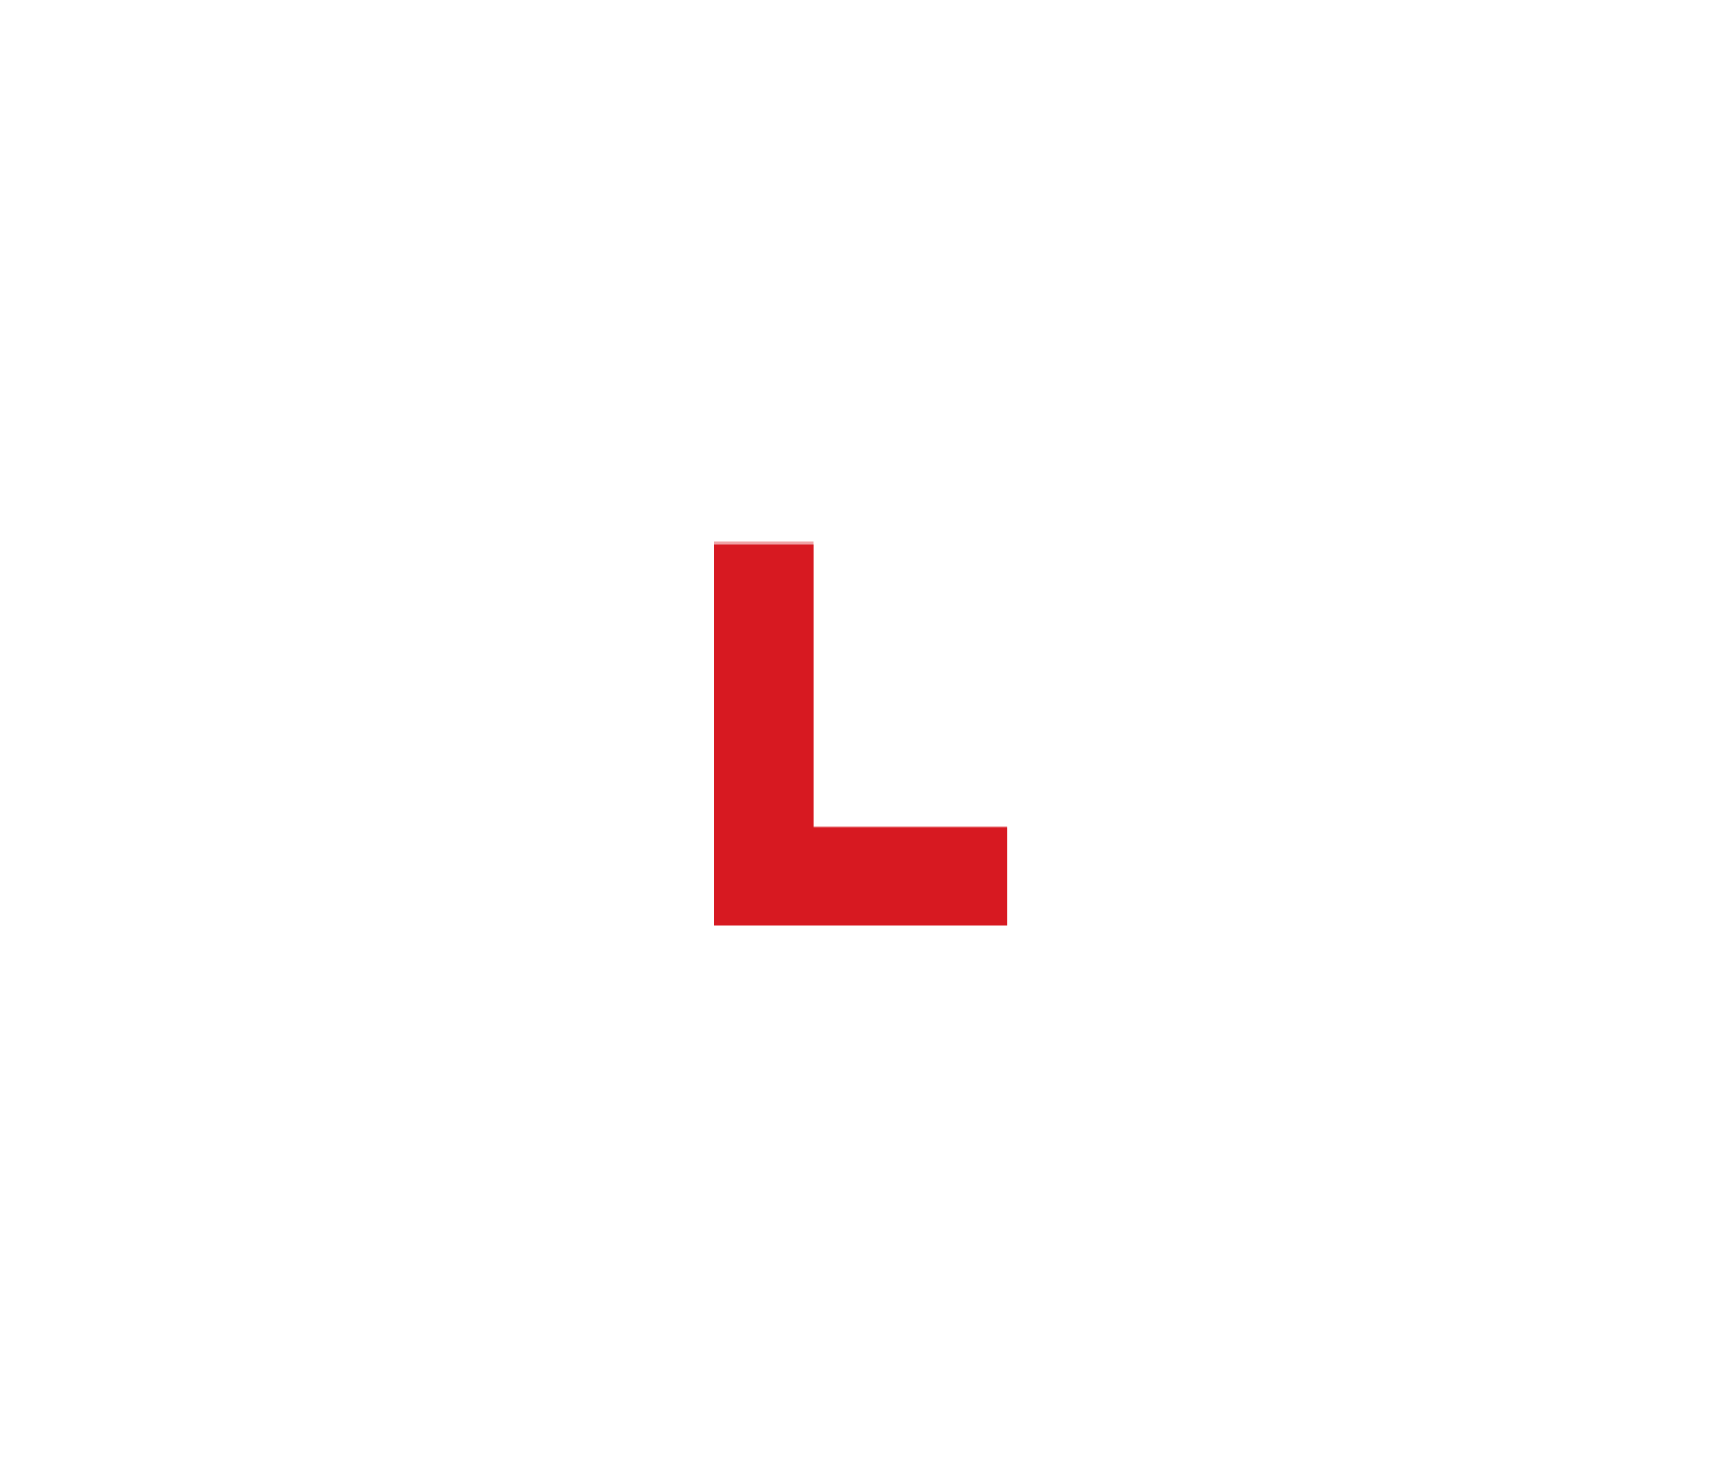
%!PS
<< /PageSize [1721 1466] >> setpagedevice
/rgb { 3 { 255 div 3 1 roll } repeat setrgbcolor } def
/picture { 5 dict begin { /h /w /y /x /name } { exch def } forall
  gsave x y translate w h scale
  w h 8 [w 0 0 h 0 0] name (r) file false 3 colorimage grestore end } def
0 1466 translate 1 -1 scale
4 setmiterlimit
255 255 255 rgb
0 0 1721 1466 rectfill
(img_01.rgb) 714 541 294 385 picture
showpage
